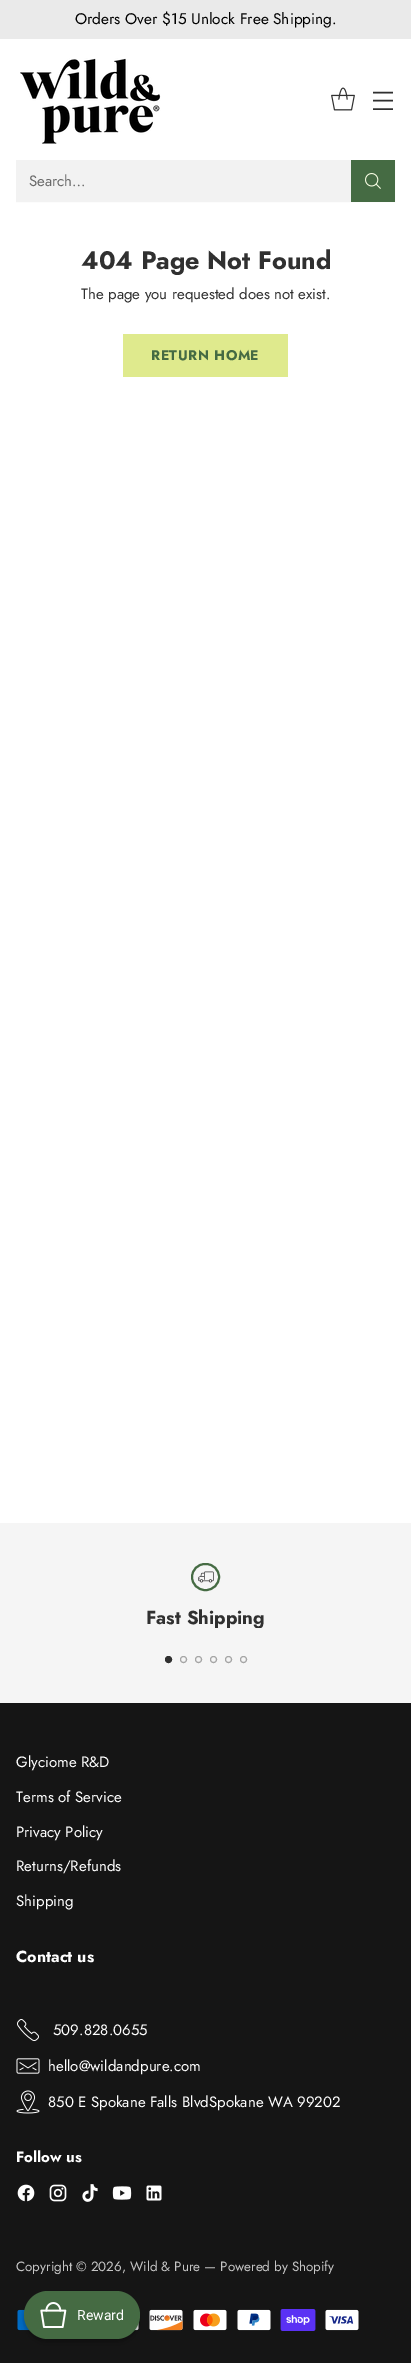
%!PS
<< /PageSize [411 2363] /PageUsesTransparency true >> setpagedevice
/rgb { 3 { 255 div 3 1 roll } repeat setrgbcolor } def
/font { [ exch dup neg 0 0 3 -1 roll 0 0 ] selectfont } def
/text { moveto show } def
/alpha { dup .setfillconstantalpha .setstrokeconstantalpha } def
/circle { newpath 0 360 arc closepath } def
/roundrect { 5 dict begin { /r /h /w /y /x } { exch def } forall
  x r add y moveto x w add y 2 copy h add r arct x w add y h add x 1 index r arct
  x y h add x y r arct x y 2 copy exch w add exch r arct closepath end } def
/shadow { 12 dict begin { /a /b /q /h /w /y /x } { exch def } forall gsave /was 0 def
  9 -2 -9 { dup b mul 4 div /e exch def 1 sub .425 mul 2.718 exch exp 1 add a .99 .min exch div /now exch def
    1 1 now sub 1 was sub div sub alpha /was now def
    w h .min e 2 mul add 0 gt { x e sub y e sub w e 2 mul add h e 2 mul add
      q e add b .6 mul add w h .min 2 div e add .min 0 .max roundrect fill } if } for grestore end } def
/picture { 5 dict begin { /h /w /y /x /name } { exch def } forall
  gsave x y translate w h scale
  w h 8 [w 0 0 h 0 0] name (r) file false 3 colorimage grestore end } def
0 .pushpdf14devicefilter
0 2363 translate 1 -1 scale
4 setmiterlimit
255 255 255 rgb
0 0 411 2363 rectfill
234 234 234 rgb
0 0 411 39 rectfill
(img_01.rgb) 20 58 141 86 picture
(img_02.rgb) 331 87 24 24 picture
48 48 48 rgb
1.4 setlinewidth
373 100.5 moveto 20 0 rlineto 373 92.5 moveto 20 0 rlineto 373 109 moveto 20 0 rlineto stroke
242 242 242 rgb
1 setlinewidth
16.5 160.5 378 41 rectstroke
17 161 334 40 rectfill
69 107 67 rgb
351 160 44 42 rectfill
(img_03.rgb) 365 173 16 16 picture
223 234 141 rgb
123 334 165 43 rectfill
245 245 245 rgb
0 1523 411 180 rectfill
69 107 67 rgb
2 setlinewidth
192 1564 27 26 13 roundrect stroke
(img_04.rgb) 198 1571 16 12 picture
48 48 48 rgb
168.5 1659.5 3 circle gsave fill grestore
1 setlinewidth
stroke
166 166 166 rgb
183.5 1659.5 3 circle stroke
198.5 1659.5 3 circle stroke
213.5 1659.5 3 circle stroke
228.5 1659.5 3 circle stroke
243.5 1659.5 3 circle stroke
21 21 21 rgb
0 1703 411 660 rectfill
(img_05.rgb) 17 2019 22 22 picture
(img_06.rgb) 16 2058 24 16 picture
(img_07.rgb) 16 2090 24 24 picture
(img_08.rgb) 17 2184 18 18 picture
(img_09.rgb) 49 2184 18 18 picture
(img_10.rgb) 82 2184 16 18 picture
(img_11.rgb) 112 2186 20 14 picture
(img_12.rgb) 146 2185 16 16 picture
(img_13.rgb) 17 2309 14 22 picture
(img_14.rgb) 133 2322 6 9 picture
(img_15.rgb) 149 2309 34 22 picture
(img_16.rgb) 193 2309 34 22 picture
(img_17.rgb) 237 2309 34 22 picture
(img_18.rgb) 280 2309 36 22 picture
(img_19.rgb) 325 2309 34 22 picture
0 0 0 rgb
24 2292 116 48 24 9 0.12 shadow
24 2297 116 48 24 5 0.14 shadow
25 2295 114 46 23 2.5 0.2 shadow
69 107 67 rgb
24 2291 116 48 24 roundrect fill
(img_20.rgb) 40 2302 27 26 picture
/Jost-Regular 15.4 font
0 0 0 rgb
(Orders Over $15 Unlock Free Shipping.) 75 24 text
/Jost-Regular 15 font
106 106 106 rgb
(Search…) 29 186 text
/Jost-Bold 25.25 font
48 48 48 rgb
(404 Page Not Found) 81 269 text
/Jost-Regular 15 font
(The page you requested does not exist.) 81 299 text
/Jost-Bold 14 font
69 107 67 rgb
151 360 moveto 0.5 0 (RETURN HOME) ashow
gsave
16 1563 379 65 rectclip
/Jost-Bold 18.75 font
48 48 48 rgb
(Fast Shipping) 146 1624 text
grestore
/Jost-Regular 15 font
255 255 255 rgb
(Glyciome R&D) 16 1767 text
(Terms of Service) 16 1802 text
(Privacy Policy) 16 1837 text
(Returns/Refunds) 16 1871 text
(Shipping) 16 1906 text
/Jost-Bold 16 font
(Contact us) 16 1962 text
/Jost-Regular 15 font
(509.828.0655) 53 2035 text
(hello@wildandpure.com) 48 2071 text
(850 E Spokane Falls BlvdSpokane WA 99202) 48 2107 text
/Jost-Bold 15 font
(Follow us) 16 2162 text
/Jost-Regular 13.4 font
197 197 197 rgb
(Copyright © 2026, Wild & Pure — Powered by Shopify) 16 2271 text
/Roboto-Regular 14 font
255 255 255 rgb
(Reward) 77 2320 text
.poppdf14devicefilter showpage
